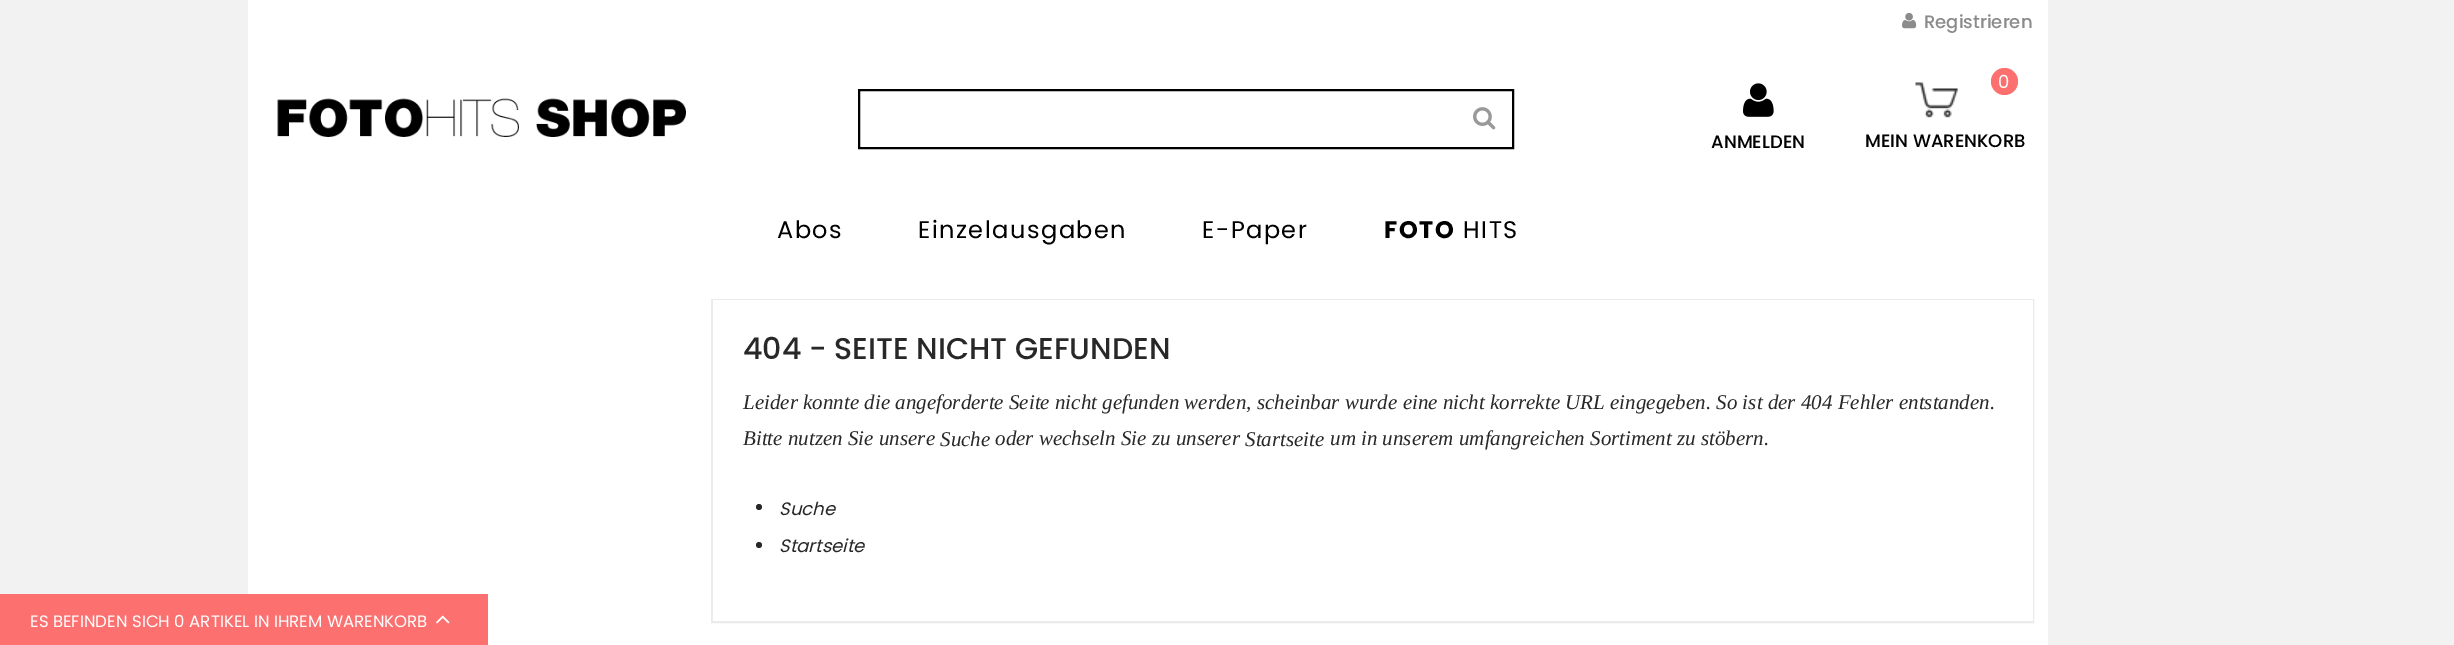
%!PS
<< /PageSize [2454 645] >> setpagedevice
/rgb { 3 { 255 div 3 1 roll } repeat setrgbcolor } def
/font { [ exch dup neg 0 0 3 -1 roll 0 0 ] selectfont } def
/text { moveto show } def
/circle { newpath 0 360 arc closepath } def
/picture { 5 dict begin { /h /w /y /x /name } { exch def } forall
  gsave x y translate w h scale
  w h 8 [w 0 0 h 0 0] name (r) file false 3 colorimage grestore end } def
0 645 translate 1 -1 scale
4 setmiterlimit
242 242 242 rgb
0 0 2454 645 rectfill
255 255 255 rgb
248 0 1800 645 rectfill
(img_01.rgb) 1902 12 15 17 picture
(img_02.rgb) 277 98 409 39 picture
0 0 0 rgb
2 setlinewidth
859 90 654 58 rectstroke
(img_03.rgb) 1473 107 23 23 picture
(img_04.rgb) 1743 83 31 34 picture
(img_05.rgb) 1915 82 44 36 picture
252 112 112 rgb
2004.5 81.5 13.5 circle fill
235 235 235 rgb
712 300 1321 322 rectstroke
255 255 255 rgb
713 300 1320 321 rectfill
40 40 40 rgb
759 507 3 circle fill
759 545 3 circle fill
252 112 112 rgb
0 594 488 51 rectfill
(img_06.rgb) 436 615 14 9 picture
/Poppins-Medium 18 font
139 139 139 rgb
(Registrieren) 1924 28 text
0 0 0 rgb
(ANMELDEN) 1711 148 text
/Poppins-Regular 18 font
255 255 255 rgb
(0) 1998 88 text
/Poppins-Medium 18 font
0 0 0 rgb
(MEIN WARENKORB) 1865 147 text
/Poppins-Regular 24 font
777 238 moveto 1.5 0 (Abos) ashow
918 238 moveto 1.5 0 (Einzelausgaben) ashow
1202 238 moveto 1.5 0 (E-Paper) ashow
/Poppins-Bold 24 font
1384 238 moveto 1.5 0 (FOTO) ashow
/Poppins-Regular 24 font
1463 238 moveto 1.5 0 (HITS) ashow
/Poppins-Medium 30 font
40 40 40 rgb
(404 - SEITE NICHT GEFUNDEN) 743 359 text
/LiberationSerif-Italic 21 font
(Leider konnte die angeforderte Seite nicht gefunden werden, scheinbar wurde eine nicht korrekte URL eingegeben. So ist der 404 Fehler entstanden.) 743 409 text
(Bitte nutzen Sie unsere) 743 445 text
(Suche) 940 446 text
(oder wechseln Sie zu unserer) 995 445 text
(Startseite) 1245 446 text
(um in unserem umfangreichen Sortiment zu stöbern.) 1330 445 text
/Poppins-Italic 18 font
(Suche) 779 515 text
(Startseite) 779 552 text
/Poppins-Regular 16.6 font
255 255 255 rgb
(ES BEFINDEN SICH 0 ARTIKEL IN IHREM WARENKORB) 30 627 text
showpage
